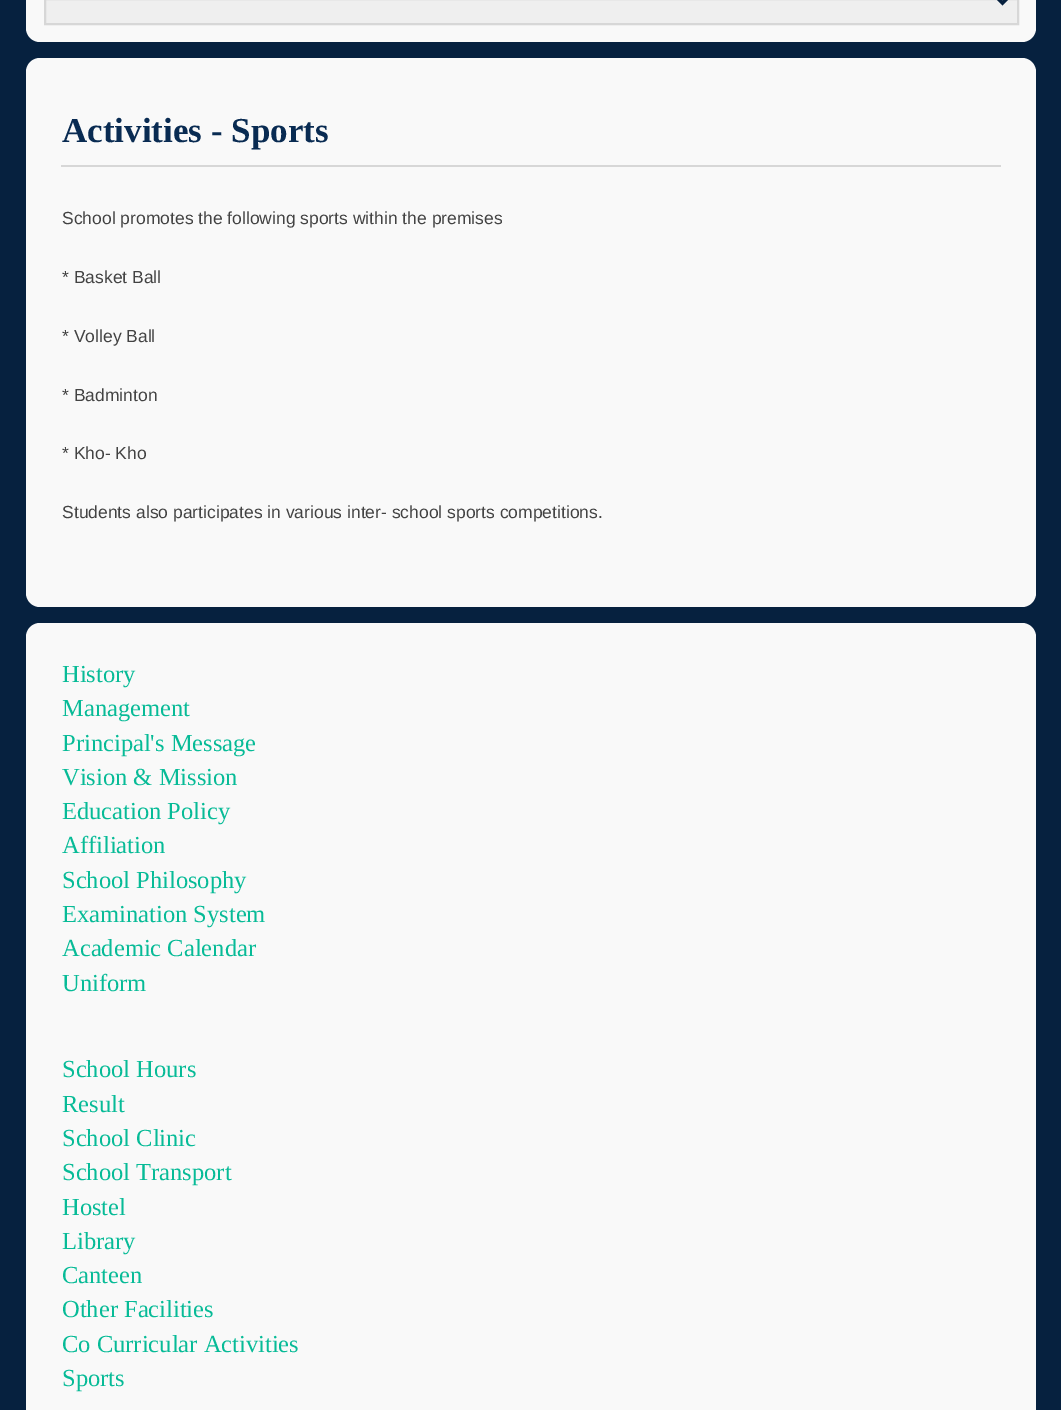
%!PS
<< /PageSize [1061 1410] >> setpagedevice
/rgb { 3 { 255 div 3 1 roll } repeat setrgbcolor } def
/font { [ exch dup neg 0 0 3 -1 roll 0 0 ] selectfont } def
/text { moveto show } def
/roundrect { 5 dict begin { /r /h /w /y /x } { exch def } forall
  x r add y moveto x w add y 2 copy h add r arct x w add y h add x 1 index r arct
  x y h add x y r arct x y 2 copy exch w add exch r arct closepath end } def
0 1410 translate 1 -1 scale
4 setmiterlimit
6 33 63 rgb
0 0 1061 1410 rectfill
249 249 249 rgb
26 -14 1010 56 14 roundrect fill
239 239 239 rgb
45 -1 moveto 973 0 rlineto 0 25 rlineto -973 0 rlineto closepath gsave fill grestore
215 215 215 rgb
2 setlinewidth
stroke
6 33 63 rgb
3.5 setlinewidth
995.5 -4 moveto 7 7 rlineto 7 -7 rlineto stroke
249 249 249 rgb
26 58 1010 549 14 roundrect fill
215 215 215 rgb
61 165 940 2 rectfill
249 249 249 rgb
26 623 1010 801 14 roundrect fill
/LiberationSerif-Bold 35 font
9 43 82 rgb
(Activities - Sports) 62 142 text
/LiberationSans-Regular 17.5 font
67 67 67 rgb
(School promotes the following sports within the premises) 62 224 text
(* Basket Ball) 62 283 text
(* Volley Ball) 62 342 text
(* Badminton) 62 401 text
(* Kho- Kho) 62 459 text
(Students also participates in various inter- school sports competitions.) 62 518 text
/LiberationSerif-Regular 24.5 font
7 187 151 rgb
(History) 62 682 text
(Management) 62 716 text
(Principal's Message) 62 751 text
(Vision & Mission) 62 785 text
(Education Policy) 62 819 text
(Affiliation) 62 853 text
(School Philosophy) 62 888 text
(Examination System) 62 922 text
(Academic Calendar) 62 956 text
(Uniform) 62 991 text
(School Hours) 62 1077 text
(Result) 62 1112 text
(School Clinic) 62 1146 text
(School Transport) 62 1180 text
(Hostel) 62 1215 text
(Library) 62 1249 text
(Canteen) 62 1283 text
(Other Facilities) 62 1317 text
(Co Curricular Activities) 62 1352 text
(Sports) 62 1386 text
showpage
